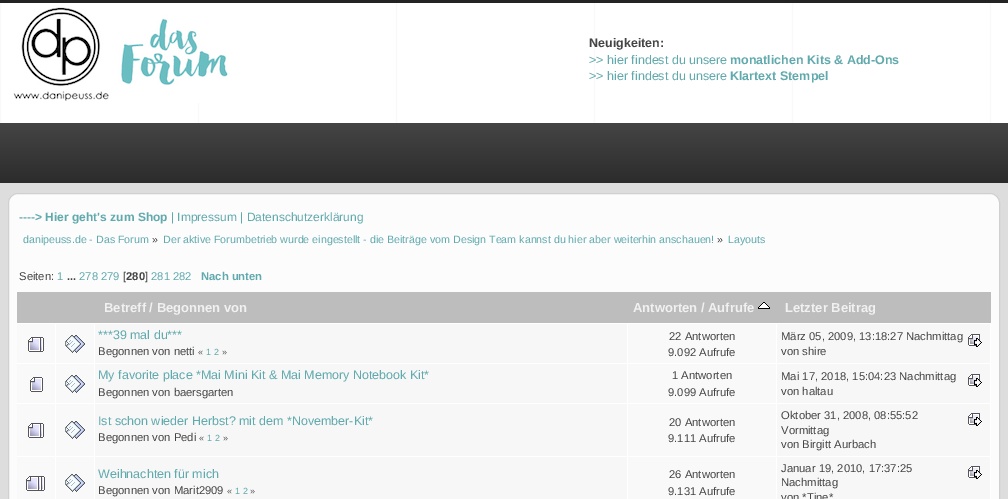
%!PS
<< /PageSize [1008 499] >> setpagedevice
/rgb { 3 { 255 div 3 1 roll } repeat setrgbcolor } def
/font { [ exch dup neg 0 0 3 -1 roll 0 0 ] selectfont } def
/text { moveto show } def
/roundrect { 5 dict begin { /r /h /w /y /x } { exch def } forall
  x r add y moveto x w add y 2 copy h add r arct x w add y h add x 1 index r arct
  x y h add x y r arct x y 2 copy exch w add exch r arct closepath end } def
/picture { 5 dict begin { /h /w /y /x /name } { exch def } forall
  gsave x y translate w h scale
  w h 8 [w 0 0 h 0 0] name (r) file false 3 colorimage grestore end } def
0 499 translate 1 -1 scale
4 setmiterlimit
221 221 221 rgb
0 0 1008 499 rectfill
249 249 249 rgb
0 3 1008 120 rectfill
(img_01.rgb) 1 3 1007 120 picture
35 35 35 rgb
0 0 1008 3 rectfill
(img_02.rgb) 13 3 215 100 picture
(img_03.rgb) 0 123 1008 60 picture
(img_04.rgb) 11 123 87 60 picture
252 252 252 rgb
8.5 193.5 991 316 9.5 roundrect gsave fill grestore
208 208 208 rgb
stroke
255 255 255 rgb
17 323 974 1 rectfill
189 189 189 rgb
17 292 974 31 rectfill
(img_05.rgb) 758 302 12 7 picture
249 249 249 rgb
17 324 38 39 rectfill
255 255 255 rgb
776 456 1 43 rectfill
990 323 1 176 rectfill
776 456 215 1 rectfill
776 403 1 54 rectfill
776 403 215 1 rectfill
776 363 1 41 rectfill
776 363 215 1 rectfill
776 323 1 41 rectfill
627 456 1 43 rectfill
627 456 150 1 rectfill
627 403 1 54 rectfill
627 403 150 1 rectfill
627 363 1 41 rectfill
627 363 150 1 rectfill
627 323 1 41 rectfill
94 456 1 43 rectfill
94 456 534 1 rectfill
94 403 1 54 rectfill
94 403 534 1 rectfill
94 363 1 41 rectfill
94 363 534 1 rectfill
94 323 1 41 rectfill
55 456 1 43 rectfill
55 456 40 1 rectfill
55 403 1 54 rectfill
55 403 40 1 rectfill
55 363 1 41 rectfill
55 363 40 1 rectfill
55 323 1 41 rectfill
17 363 39 1 rectfill
(img_06.rgb) 28 337 16 15 picture
249 249 249 rgb
56 324 38 39 rectfill
(img_07.rgb) 65 335 20 18 picture
247 247 247 rgb
95 324 532 39 rectfill
249 249 249 rgb
628 324 148 39 rectfill
247 247 247 rgb
777 324 213 39 rectfill
(img_08.rgb) 968 334 14 13 picture
249 249 249 rgb
17 364 38 39 rectfill
255 255 255 rgb
17 403 39 1 rectfill
(img_09.rgb) 30 377 13 15 picture
249 249 249 rgb
56 364 38 39 rectfill
(img_07.rgb) 65 375 20 18 picture
247 247 247 rgb
95 364 532 39 rectfill
249 249 249 rgb
628 364 148 39 rectfill
247 247 247 rgb
777 364 213 39 rectfill
(img_08.rgb) 968 374 14 13 picture
249 249 249 rgb
17 404 38 52 rectfill
255 255 255 rgb
17 456 39 1 rectfill
(img_06.rgb) 28 423 16 15 picture
249 249 249 rgb
56 404 38 52 rectfill
(img_07.rgb) 65 421 20 18 picture
247 247 247 rgb
95 404 532 52 rectfill
249 249 249 rgb
628 404 148 52 rectfill
247 247 247 rgb
777 404 213 52 rectfill
(img_08.rgb) 968 413 14 13 picture
249 249 249 rgb
17 457 38 42 rectfill
(img_10.rgb) 26 476 19 15 picture
56 457 38 42 rectfill
(img_07.rgb) 65 474 20 18 picture
247 247 247 rgb
95 457 532 42 rectfill
249 249 249 rgb
628 457 148 42 rectfill
247 247 247 rgb
777 457 213 42 rectfill
(img_08.rgb) 968 466 14 13 picture
/LiberationSans-Bold 12.5 font
68 68 68 rgb
(Neuigkeiten:) 589 47 text
/LiberationSans-Regular 12.5 font
96 169 173 rgb
(>> hier findest du unsere) 589 64 text
/LiberationSans-Bold 12.5 font
(monatlichen Kits & Add-Ons) 730 64 text
/LiberationSans-Regular 12.5 font
(>> hier findest du unsere) 589 80 text
/LiberationSans-Bold 12.5 font
(Klartext Stempel) 730 80 text
/LiberationSans-Bold 12 font
(----> Hier geht's zum Shop) 19 221 text
/LiberationSans-Regular 12 font
(| Impressum | Datenschutzerklärung) 171 221 text
/LiberationSans-Regular 10.67 font
(danipeuss.de - Das Forum) 23 243 text
68 68 68 rgb
(») 152 243 text
96 169 173 rgb
(Der aktive Forumbetrieb wurde eingestellt - die Beiträge vom Design Team kannst du hier aber weiterhin anschauen!) 163 243 text
68 68 68 rgb
(») 717 243 text
96 169 173 rgb
(Layouts) 728 243 text
/LiberationSans-Regular 11.25 font
68 68 68 rgb
(Seiten:) 19 280 text
96 169 173 rgb
(1) 57 280 text
/LiberationSans-Bold 11.25 font
68 68 68 rgb
(...) 67 280 text
/LiberationSans-Regular 11.25 font
96 169 173 rgb
(278 279) 79 280 text
68 68 68 rgb
([) 123 280 text
/LiberationSans-Bold 11.25 font
(280) 126 280 text
/LiberationSans-Regular 11.25 font
(]) 145 280 text
96 169 173 rgb
(281 282) 151 280 text
/LiberationSans-Bold 11.25 font
(Nach unten) 201 280 text
/LiberationSans-Bold 13 font
241 241 241 rgb
(Betreff / Begonnen von) 104 312 text
(Antworten / Aufrufe) 633 312 text
(Letzter Beitrag) 785 312 text
/LiberationSans-Regular 12.5 font
96 169 173 rgb
(***39 mal du***) 98 339 text
/LiberationSans-Regular 11.25 font
68 68 68 rgb
(Begonnen von netti) 98 355 text
/LiberationSans-Regular 9 font
(«) 198 355 text
96 169 173 rgb
(1 2) 206 355 text
68 68 68 rgb
(») 222 355 text
/LiberationSans-Regular 11.25 font
(22 Antworten) 669 340 text
(9.092 Aufrufe) 668 356 text
(März 05, 2009, 13:18:27 Nachmittag) 781 340 text
(von shire) 781 355 text
/LiberationSans-Regular 12.5 font
96 169 173 rgb
(My favorite place *Mai Mini Kit & Mai Memory Notebook Kit*) 98 379 text
/LiberationSans-Regular 11.25 font
68 68 68 rgb
(Begonnen von baersgarten) 98 396 text
(1 Antworten) 672 379 text
(9.099 Aufrufe) 668 396 text
(Mai 17, 2018, 15:04:23 Nachmittag) 781 380 text
(von haltau) 781 395 text
/LiberationSans-Regular 12.5 font
96 169 173 rgb
(Ist schon wieder Herbst? mit dem *November-Kit*) 98 425 text
/LiberationSans-Regular 11.25 font
68 68 68 rgb
(Begonnen von Pedi) 98 441 text
/LiberationSans-Regular 9 font
(«) 199 441 text
96 169 173 rgb
(1 2) 207 441 text
68 68 68 rgb
(») 223 441 text
/LiberationSans-Regular 11.25 font
(20 Antworten) 669 426 text
(9.111 Aufrufe) 668 442 text
(Oktober 31, 2008, 08:55:52) 781 419 text
(Vormittag) 781 434 text
(von Birgitt Aurbach) 781 448 text
/LiberationSans-Regular 12.5 font
96 169 173 rgb
(Weihnachten für mich) 98 478 text
/LiberationSans-Regular 11.25 font
68 68 68 rgb
(Begonnen von Marit2909) 98 494 text
/LiberationSans-Regular 9 font
(«) 227 494 text
96 169 173 rgb
(1 2) 235 494 text
68 68 68 rgb
(») 250 494 text
/LiberationSans-Regular 11.25 font
(26 Antworten) 669 478 text
(9.131 Aufrufe) 668 495 text
(Januar 19, 2010, 17:37:25) 781 472 text
(Nachmittag) 781 486 text
(von *Tine*) 781 501 text
showpage
